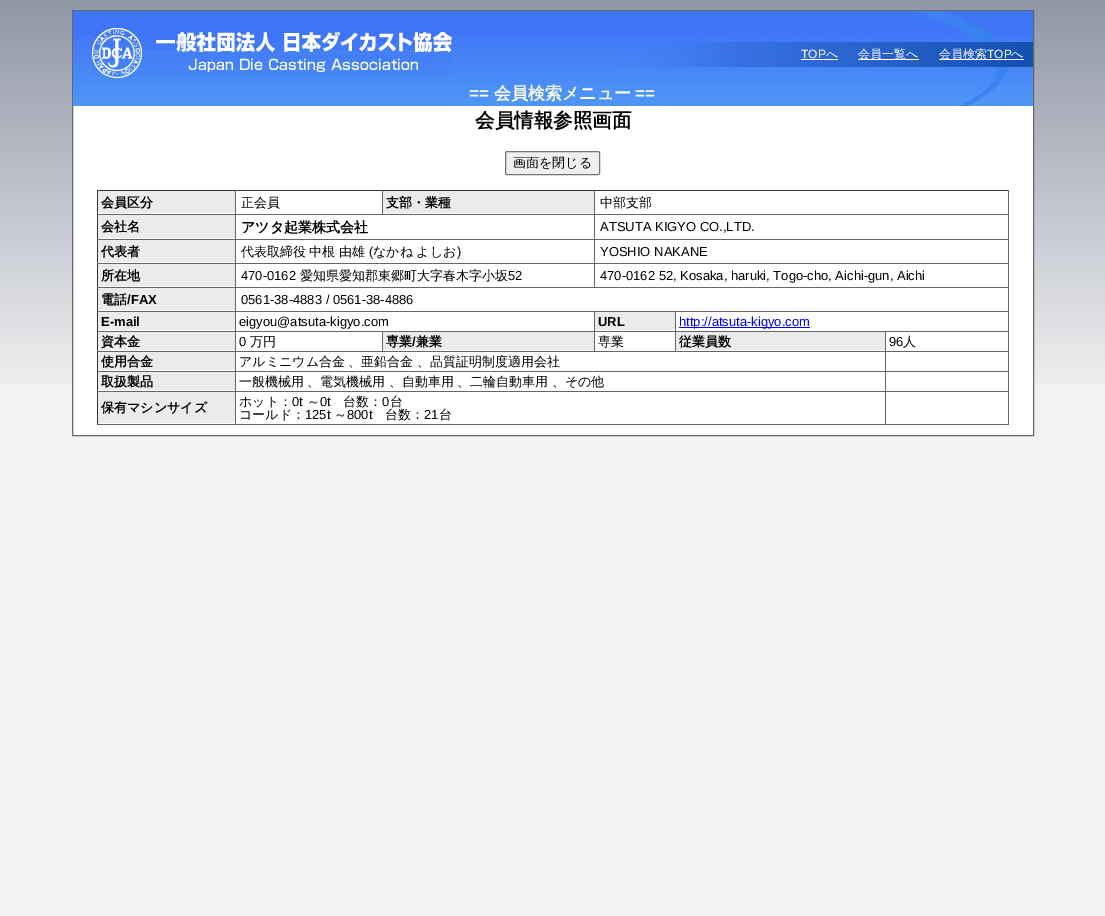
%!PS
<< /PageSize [1105 916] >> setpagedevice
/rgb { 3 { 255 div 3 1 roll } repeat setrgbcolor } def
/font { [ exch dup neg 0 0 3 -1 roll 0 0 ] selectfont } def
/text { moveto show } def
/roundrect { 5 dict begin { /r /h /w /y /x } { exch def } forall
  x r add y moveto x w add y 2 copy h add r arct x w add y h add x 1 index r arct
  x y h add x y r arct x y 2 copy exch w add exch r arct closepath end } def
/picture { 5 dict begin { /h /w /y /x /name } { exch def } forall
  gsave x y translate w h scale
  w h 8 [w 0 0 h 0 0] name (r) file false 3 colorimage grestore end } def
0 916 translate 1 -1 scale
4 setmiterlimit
242 242 242 rgb
0 0 1105 916 rectfill
(img_01.rgb) 0 0 1105 384 picture
255 255 255 rgb
73 106 960 329 rectfill
103 103 103 rgb
72.5 10.5 961 425 rectstroke
(img_02.rgb) 73 11 960 95 picture
(img_03.rgb) 92 28 360 50 picture
255 255 255 rgb
801 59 37 1 rectfill
858 59 61 1 rectfill
939 59 85 1 rectfill
239 239 239 rgb
505.5 151.5 94 23 1.5 roundrect gsave fill grestore
118 118 118 rgb
stroke
51 51 51 rgb
97 190 912 1 rectfill
97 190 1 235 rectfill
235 235 235 rgb
98 191 137 22 rectfill
102 102 102 rgb
1008 190 1 235 rectfill
594 287 415 1 rectfill
594 263 1 25 rectfill
594 263 415 1 rectfill
594 239 1 25 rectfill
594 239 415 1 rectfill
594 214 1 26 rectfill
594 214 415 1 rectfill
594 190 1 25 rectfill
382 214 213 1 rectfill
382 190 1 25 rectfill
885 424 124 1 rectfill
885 391 1 34 rectfill
885 391 124 1 rectfill
885 371 1 21 rectfill
885 371 124 1 rectfill
885 351 1 21 rectfill
885 351 124 1 rectfill
885 331 1 21 rectfill
675 351 211 1 rectfill
675 331 1 21 rectfill
675 331 334 1 rectfill
675 311 1 21 rectfill
594 351 82 1 rectfill
594 331 1 21 rectfill
594 331 82 1 rectfill
594 311 1 21 rectfill
382 351 213 1 rectfill
382 331 1 21 rectfill
235 424 651 1 rectfill
235 391 1 34 rectfill
235 391 651 1 rectfill
235 371 1 21 rectfill
235 371 651 1 rectfill
235 351 1 21 rectfill
235 351 148 1 rectfill
235 331 1 21 rectfill
235 331 360 1 rectfill
235 311 1 21 rectfill
235 311 774 1 rectfill
235 287 1 25 rectfill
235 287 360 1 rectfill
235 263 1 25 rectfill
235 263 360 1 rectfill
235 239 1 25 rectfill
235 239 360 1 rectfill
235 214 1 26 rectfill
235 214 148 1 rectfill
235 190 1 25 rectfill
97 214 139 1 rectfill
235 235 235 rgb
383 191 211 22 rectfill
98 215 137 23 rectfill
102 102 102 rgb
97 239 139 1 rectfill
235 235 235 rgb
98 240 137 22 rectfill
102 102 102 rgb
97 263 139 1 rectfill
235 235 235 rgb
98 264 137 22 rectfill
102 102 102 rgb
97 287 139 1 rectfill
235 235 235 rgb
98 288 137 22 rectfill
102 102 102 rgb
97 311 139 1 rectfill
235 235 235 rgb
98 312 137 18 rectfill
102 102 102 rgb
97 331 139 1 rectfill
235 235 235 rgb
595 312 80 18 rectfill
0 0 238 rgb
679 327 131 1 rectfill
235 235 235 rgb
98 332 137 18 rectfill
102 102 102 rgb
97 351 139 1 rectfill
235 235 235 rgb
383 332 211 18 rectfill
676 332 209 18 rectfill
98 352 137 18 rectfill
102 102 102 rgb
97 371 139 1 rectfill
235 235 235 rgb
98 372 137 18 rectfill
102 102 102 rgb
97 391 139 1 rectfill
235 235 235 rgb
98 392 137 31 rectfill
102 102 102 rgb
97 424 139 1 rectfill
/LiberationSans-Regular 12 font
255 255 255 rgb
(TOP) 801 58 text
/WenQuanYiZenHei-Medium 12 font
(へ) 826 58 text
(会員一覧へ) 858 58 text
(会員検索) 939 58 text
/LiberationSans-Regular 12 font
(TOP) 987 58 text
/WenQuanYiZenHei-Medium 12 font
(へ) 1011 58 text
/LiberationSans-Bold 17 font
(==) 469 99 text
/WenQuanYiZenHei-Bold 17 font
(会員検索メニュー) 494 99 text
/LiberationSans-Bold 17 font
(==) 635 99 text
/WenQuanYiZenHei-Bold 19.5 font
0 0 0 rgb
(会員情報参照画面) 475 127 text
/WenQuanYiZenHei-Medium 13 font
(画面を閉じる) 513 167 text
/WenQuanYiZenHei-Bold 13 font
(会員区分) 101 207 text
/WenQuanYiZenHei-Medium 13 font
(正会員) 241 207 text
/WenQuanYiZenHei-Bold 13 font
(支部・業種) 386 207 text
/WenQuanYiZenHei-Medium 13 font
(中部支部) 600 207 text
/WenQuanYiZenHei-Bold 13 font
(会社名) 101 231 text
/WenQuanYiZenHei-Bold 14 font
(アツタ起業株式会社) 241 232 text
/LiberationSans-Regular 13 font
(ATSUTA KIGYO CO.,LTD.) 600 231 text
/WenQuanYiZenHei-Bold 13 font
(代表者) 101 256 text
/WenQuanYiZenHei-Medium 13 font
241 256 moveto -0.5 0 32 (代表取締役 中根 由雄) widthshow
/LiberationSans-Regular 13 font
(\() 369 256 text
/WenQuanYiZenHei-Medium 13 font
373 256 moveto -0.5 0 32 (なかね よしお) widthshow
/LiberationSans-Regular 13 font
(\)) 457 256 text
(YOSHIO NAKANE) 600 256 text
/WenQuanYiZenHei-Bold 13 font
(所在地) 101 280 text
/LiberationSans-Regular 13 font
(470-0162) 241 280 text
/WenQuanYiZenHei-Medium 13 font
(愛知県愛知郡東郷町大字春木字小坂) 300 280 text
/LiberationSans-Regular 13 font
(52) 508 280 text
(470-0162 52, Kosaka, haruki, Togo-cho, Aichi-gun, Aichi) 600 280 text
/WenQuanYiZenHei-Bold 13 font
(電話) 101 304 text
/LiberationSans-Bold 13 font
(/FAX) 127 304 text
/LiberationSans-Regular 13 font
(0561-38-4883 / 0561-38-4886) 241 304 text
/LiberationSans-Bold 13 font
(E-mail) 101 326 text
/LiberationSans-Regular 13 font
(eigyou@atsuta-kigyo.com) 239 326 text
/LiberationSans-Bold 13 font
(URL) 598 326 text
/LiberationSans-Regular 13 font
0 0 238 rgb
(http://atsuta-kigyo.com) 679 326 text
/WenQuanYiZenHei-Bold 13 font
0 0 0 rgb
(資本金) 101 346 text
/LiberationSans-Regular 13 font
(0) 239 346 text
/WenQuanYiZenHei-Medium 13 font
(万円) 250 346 text
/WenQuanYiZenHei-Bold 13 font
(専業 兼業) 386 346 text
/LiberationSans-Bold 13 font
(/) 412 346 text
/WenQuanYiZenHei-Medium 13 font
(専業) 598 346 text
/WenQuanYiZenHei-Bold 13 font
(従業員数) 679 346 text
/LiberationSans-Regular 13 font
(96) 889 346 text
/WenQuanYiZenHei-Medium 13 font
(人) 903 346 text
/WenQuanYiZenHei-Bold 13 font
(使用合金) 101 366 text
/WenQuanYiZenHei-Medium 13 font
239 366 moveto -0.5 0 32 (アルミニウム合金 、亜鉛合金 、品質証明制度適用会社) widthshow
/WenQuanYiZenHei-Bold 13 font
(取扱製品) 101 386 text
/WenQuanYiZenHei-Medium 13 font
239 386 moveto -0.5 0 32 (一般機械用 、電気機械用 、自動車用 、二輪自動車用 、その他) widthshow
/WenQuanYiZenHei-Bold 13 font
(保有マシンサイズ) 101 412 text
/WenQuanYiZenHei-Medium 13 font
(ホット：) 239 406 text
/LiberationSans-Regular 13 font
(0t) 292 406 text
/WenQuanYiZenHei-Medium 13 font
(～) 307 406 text
/LiberationSans-Regular 13 font
(0t) 320 406 text
/WenQuanYiZenHei-Medium 13 font
(台数：) 343 406 text
/LiberationSans-Regular 13 font
(0) 382 406 text
/WenQuanYiZenHei-Medium 13 font
(台) 390 406 text
(コールド：) 239 419 text
/LiberationSans-Regular 13 font
(125t) 305 419 text
/WenQuanYiZenHei-Medium 13 font
(～) 334 419 text
/LiberationSans-Regular 13 font
(800t) 347 419 text
/WenQuanYiZenHei-Medium 13 font
(台数：) 385 419 text
/LiberationSans-Regular 13 font
(21) 424 419 text
/WenQuanYiZenHei-Medium 13 font
(台) 439 419 text
showpage
